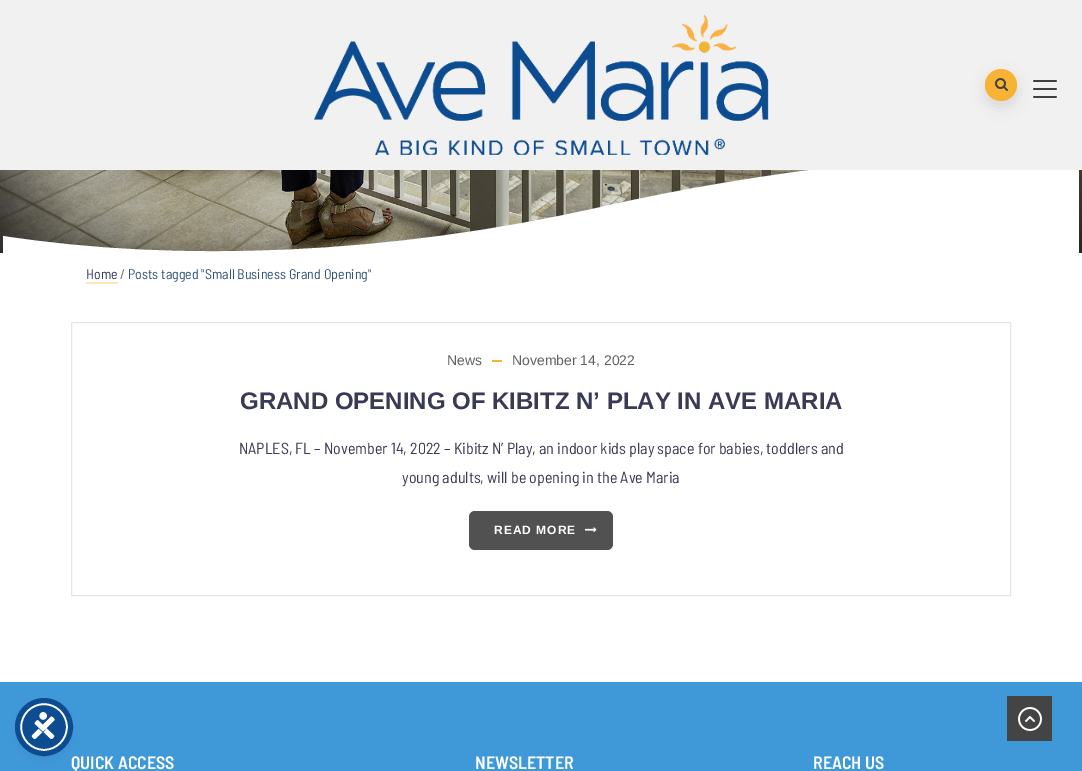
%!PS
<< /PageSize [1082 771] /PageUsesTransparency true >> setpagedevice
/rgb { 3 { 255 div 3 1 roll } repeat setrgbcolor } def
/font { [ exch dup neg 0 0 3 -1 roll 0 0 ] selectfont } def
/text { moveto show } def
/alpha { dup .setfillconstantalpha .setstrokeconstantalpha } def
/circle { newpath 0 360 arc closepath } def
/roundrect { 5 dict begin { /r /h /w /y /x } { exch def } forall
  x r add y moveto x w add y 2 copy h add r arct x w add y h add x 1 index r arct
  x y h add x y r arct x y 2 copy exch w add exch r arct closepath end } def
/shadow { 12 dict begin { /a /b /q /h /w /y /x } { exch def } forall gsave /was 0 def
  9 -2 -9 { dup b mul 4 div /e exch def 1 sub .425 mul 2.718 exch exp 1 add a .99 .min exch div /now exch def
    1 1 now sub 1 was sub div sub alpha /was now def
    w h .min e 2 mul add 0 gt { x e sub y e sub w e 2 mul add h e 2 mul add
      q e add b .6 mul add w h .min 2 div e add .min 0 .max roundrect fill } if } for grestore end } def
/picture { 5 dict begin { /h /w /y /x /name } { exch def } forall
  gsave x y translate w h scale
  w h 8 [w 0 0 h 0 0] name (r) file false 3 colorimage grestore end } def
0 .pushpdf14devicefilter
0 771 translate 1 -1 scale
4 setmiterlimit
255 255 255 rgb
0 0 1082 771 rectfill
(img_04.rgb) 0 170 1082 83 picture
gsave
0 150 1082 103 rectclip
601 207 moveto -212 48 -423 56 -598 29 rcurveto 0 19 rlineto 1076 0 rlineto 0 -105 rlineto -138 2 -311 19 -478 57 rcurveto closepath fill
grestore
241 241 242 rgb
0 0 1082 170 rectfill
(img_01.rgb) 313 15 456 140 picture
0 0 0 rgb
985 75 32 32 16 7 0.1 shadow
246 179 52 rgb
1001 85 16 circle fill
(img_02.rgb) 995 78 13 13 picture
(img_03.rgb) 1033 80 24 18 picture
252 230 188 rgb
86 282 32 2 rectfill
230 230 230 rgb
71.5 322.5 939 273 rectstroke
246 179 52 rgb
492 360 10 2 rectfill
81 81 81 rgb
469 511 144 39 6 roundrect fill
(img_05.rgb) 585 527 12 6 picture
63 153 217 rgb
0 682 1082 89 rectfill
93 100 148 rgb
20 705 48 48 24 2 0.2 shadow
37 44 97 rgb
20 708 48 48 24 7.5 0.15 shadow
12 76 145 rgb
44 727 23 circle gsave fill grestore
255 255 255 rgb
2 setlinewidth
stroke
12 76 145 rgb
5 setlinewidth
44 727 26.5 circle stroke
(img_06.rgb) 31 712 24 27 picture
68 68 68 rgb
1007 696 45 45 rectfill
(img_07.rgb) 1018 707 24 24 picture
/BarlowSemiCondensed-Regular 14 font
58 58 87 rgb
(Home) 86 279 text
97 97 97 rgb
(/) 120 279 text
51 83 120 rgb
(Posts tagged "Small Business Grand Opening") 128 279 text
/LiberationSans-Regular 14 font
97 97 97 rgb
(News) 447 365 text
(November 14, 2022) 512 365 text
/LiberationSans-Bold 24 font
58 58 87 rgb
(GRAND OPENING OF KIBITZ N’ PLAY IN AVE MARIA) 240 409 text
/BarlowSemiCondensed-Regular 16 font
(NAPLES, FL – November 14, 2022 – Kibitz N’ Play, an indoor kids play space for babies, toddlers and) 239 454 text
(young adults, will be opening in the Ave Maria) 402 483 text
/LiberationSans-Bold 12 font
255 255 255 rgb
494 534 moveto 1 0 (READ MORE) ashow
/BarlowSemiCondensed-SemiBold 18 font
(QUICK ACCESS) 71 769 text
(NEWSLETTER) 475 769 text
(REACH US) 813 769 text
.poppdf14devicefilter showpage
